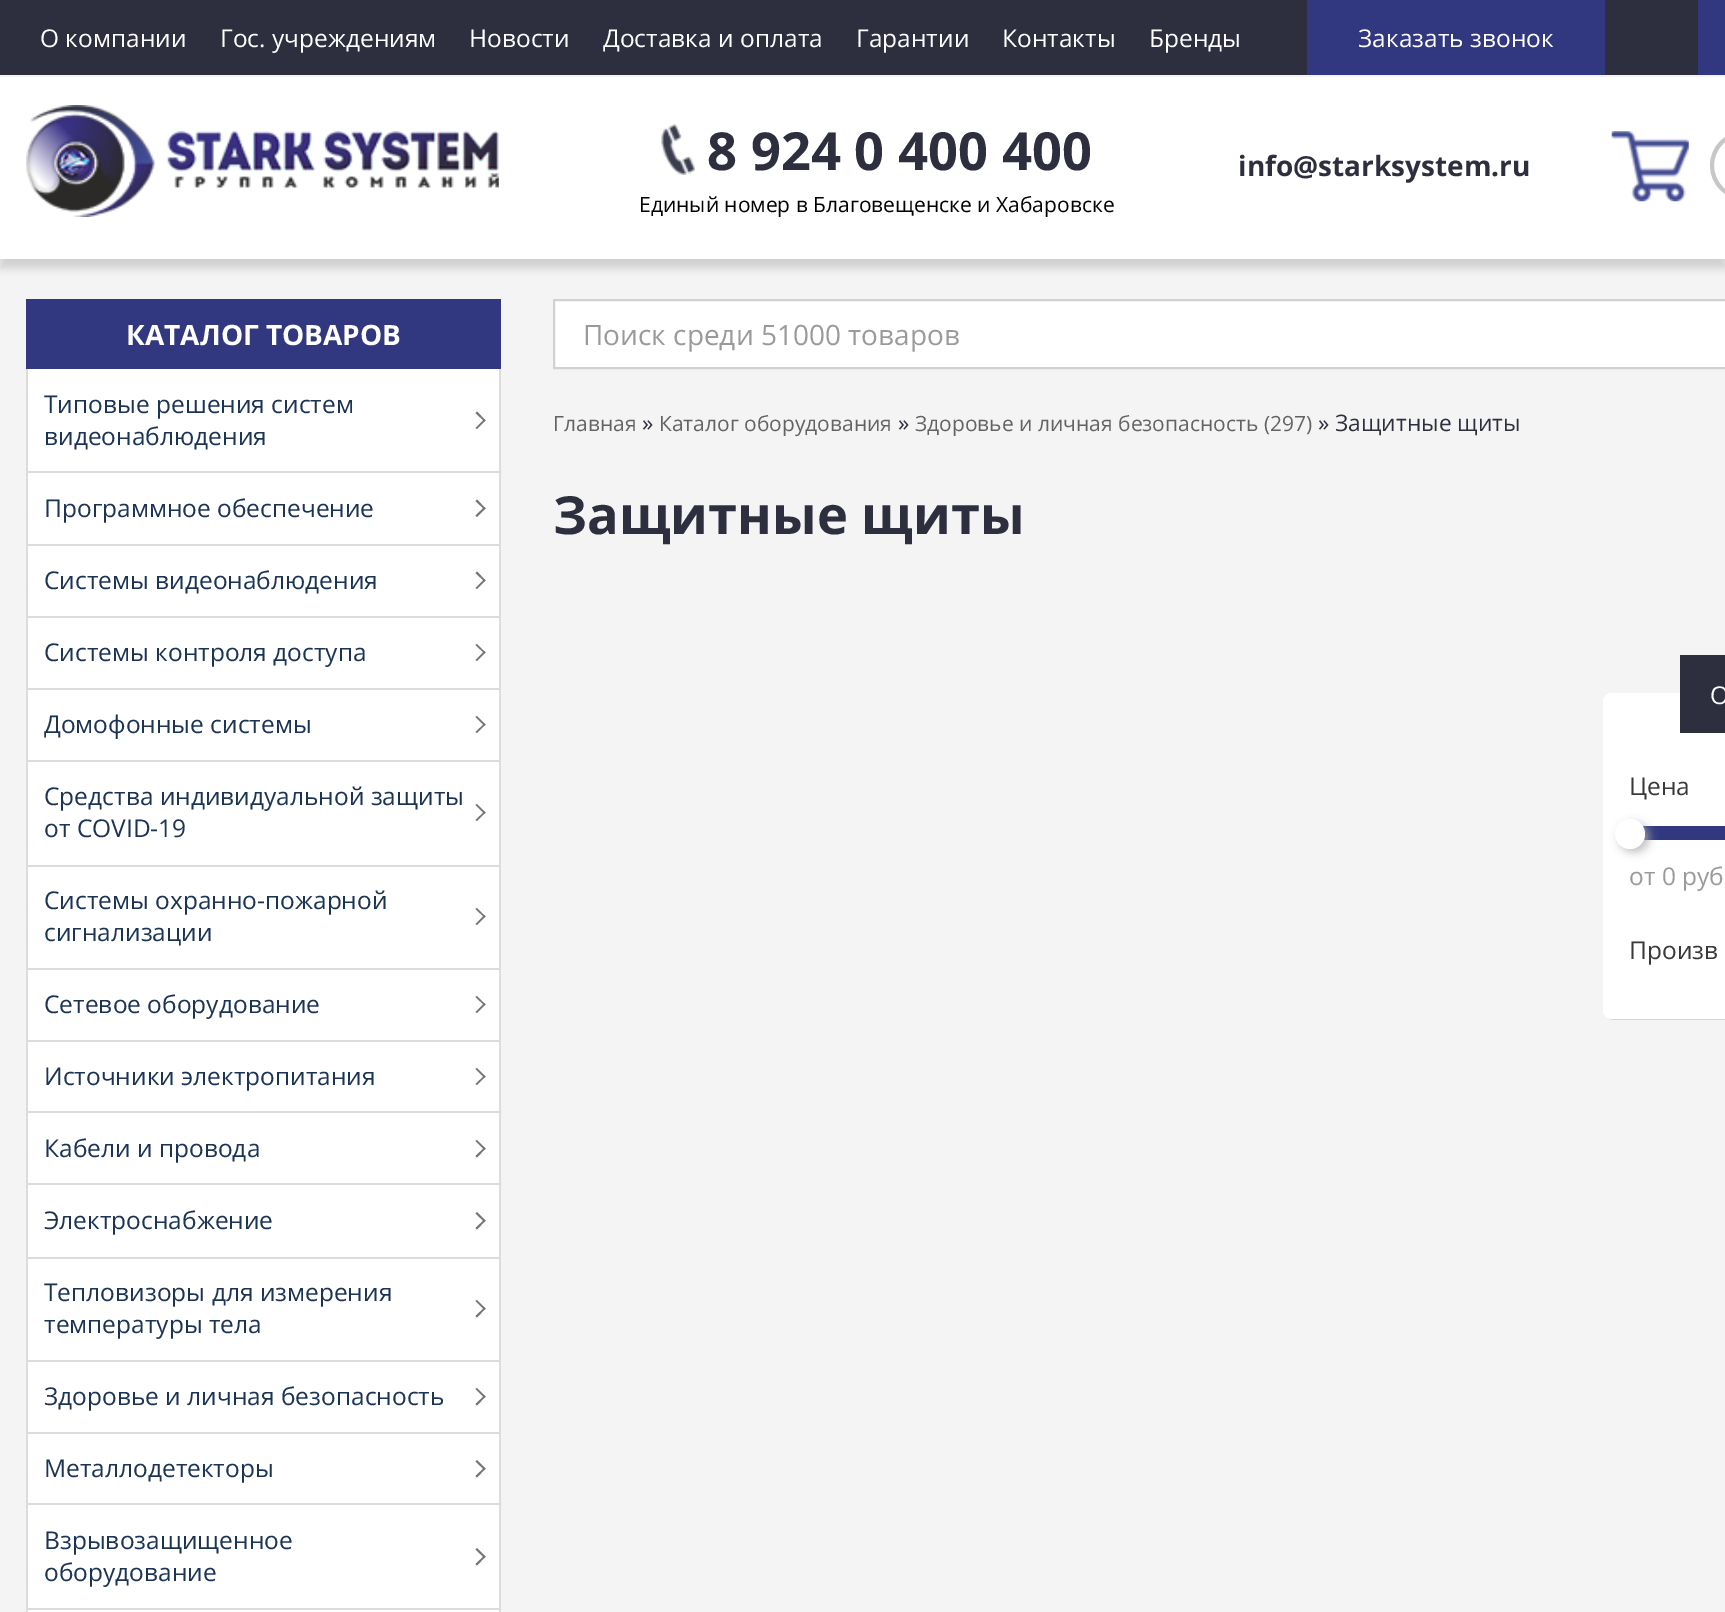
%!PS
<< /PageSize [1725 1612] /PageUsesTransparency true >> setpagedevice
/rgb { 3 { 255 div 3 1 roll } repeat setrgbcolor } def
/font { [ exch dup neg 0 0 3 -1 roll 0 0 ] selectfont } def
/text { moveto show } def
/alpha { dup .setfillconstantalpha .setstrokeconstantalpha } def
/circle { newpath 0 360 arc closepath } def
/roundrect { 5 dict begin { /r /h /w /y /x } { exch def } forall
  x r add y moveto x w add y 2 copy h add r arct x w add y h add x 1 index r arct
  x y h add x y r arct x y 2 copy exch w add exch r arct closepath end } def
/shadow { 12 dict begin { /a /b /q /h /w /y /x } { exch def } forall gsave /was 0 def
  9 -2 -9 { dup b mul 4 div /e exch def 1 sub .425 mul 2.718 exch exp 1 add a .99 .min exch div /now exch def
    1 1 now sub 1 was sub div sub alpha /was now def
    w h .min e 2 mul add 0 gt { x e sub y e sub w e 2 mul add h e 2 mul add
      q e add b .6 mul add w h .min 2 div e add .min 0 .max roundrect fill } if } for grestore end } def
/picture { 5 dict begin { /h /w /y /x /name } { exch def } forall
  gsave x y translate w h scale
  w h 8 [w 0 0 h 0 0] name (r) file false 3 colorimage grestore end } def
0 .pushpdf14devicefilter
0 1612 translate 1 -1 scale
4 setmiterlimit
244 244 244 rgb
0 0 1725 1612 rectfill
0 0 2 rgb
0 86 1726 182 0 4.5 0.15 shadow
45 47 62 rgb
0 0 1698 75 rectfill
49 56 127 rgb
1307 0 298 75 rectfill
1698 0 27 75 rectfill
255 255 255 rgb
0 77 1725 182 rectfill
(img_01.rgb) 26 105 473 112 picture
(img_02.rgb) 661 124 34 51 picture
(img_03.rgb) 1611 131 78 71 picture
199 199 199 rgb
4 setlinewidth
1712 133 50 65 32.5 roundrect stroke
49 56 127 rgb
26 299 475 70 rectfill
255 255 255 rgb
28 369 471 1243 rectfill
220 220 220 rgb
499 369 2 392 rectfill
26 471 475 2 rectfill
26 369 2 104 rectfill
117 117 117 rgb
475.5 413 moveto 1.5 -1.5 rlineto 8.5 9 rlineto -1 1 rlineto closepath fill
475.5 428 moveto 9 -9 rlineto 1 1.5 rlineto -8.5 8.5 rlineto closepath fill
220 220 220 rgb
26 544 475 2 rectfill
26 473 2 73 rectfill
117 117 117 rgb
475.5 501 moveto 1.5 -1.5 rlineto 8.5 9 rlineto -1 1 rlineto closepath fill
475.5 515.5 moveto 9 -8.5 rlineto 1 1.5 rlineto -8.5 8.5 rlineto closepath fill
220 220 220 rgb
26 616 475 2 rectfill
26 546 2 72 rectfill
117 117 117 rgb
475.5 573 moveto 1.5 -1.5 rlineto 8.5 9 rlineto -1 1 rlineto closepath fill
475.5 588 moveto 9 -9 rlineto 1 1.5 rlineto -8.5 8.5 rlineto closepath fill
220 220 220 rgb
26 688 475 2 rectfill
26 618 2 72 rectfill
117 117 117 rgb
475.5 645 moveto 1.5 -1 rlineto 8.5 8.5 rlineto -1 1 rlineto closepath fill
475.5 660 moveto 9 -9 rlineto 1 1.5 rlineto -8.5 8.5 rlineto closepath fill
220 220 220 rgb
26 760 475 2 rectfill
26 690 2 71 rectfill
117 117 117 rgb
475.5 717 moveto 1.5 -1 rlineto 8.5 8.5 rlineto -1 1.5 rlineto closepath fill
475.5 732 moveto 9 -8.5 rlineto 1 1 rlineto -8.5 8.5 rlineto closepath fill
220 220 220 rgb
499 761 2 105 rectfill
26 865 475 2 rectfill
26 761 2 105 rectfill
117 117 117 rgb
475.5 805 moveto 1.5 -1 rlineto 8.5 8.5 rlineto -1 1.5 rlineto closepath fill
475.5 820 moveto 9 -8.5 rlineto 1 1 rlineto -8.5 8.5 rlineto closepath fill
220 220 220 rgb
499 866 2 175 rectfill
26 968 475 2 rectfill
26 866 2 104 rectfill
117 117 117 rgb
475.5 909 moveto 1.5 -1 rlineto 8.5 8.5 rlineto -1 1 rlineto closepath fill
475.5 924 moveto 9 -9 rlineto 1 1.5 rlineto -8.5 8.5 rlineto closepath fill
220 220 220 rgb
26 1040 475 2 rectfill
26 970 2 71 rectfill
117 117 117 rgb
475.5 997 moveto 1.5 -1 rlineto 8.5 8.5 rlineto -1 1 rlineto closepath fill
475.5 1012 moveto 9 -9 rlineto 1 1.5 rlineto -8.5 8.5 rlineto closepath fill
220 220 220 rgb
499 1041 2 217 rectfill
26 1111 475 2 rectfill
26 1041 2 72 rectfill
117 117 117 rgb
475.5 1069 moveto 1.5 -1 rlineto 8.5 8.5 rlineto -1 1.5 rlineto closepath fill
475.5 1084 moveto 9 -8.5 rlineto 1 1 rlineto -8.5 8.5 rlineto closepath fill
220 220 220 rgb
26 1183 475 2 rectfill
26 1113 2 72 rectfill
117 117 117 rgb
475.5 1141 moveto 1.5 -1 rlineto 8.5 8.5 rlineto -1 1.5 rlineto closepath fill
475.5 1156 moveto 9 -8.5 rlineto 1 1 rlineto -8.5 9 rlineto closepath fill
220 220 220 rgb
26 1257 475 2 rectfill
26 1185 2 73 rectfill
117 117 117 rgb
475.5 1213.5 moveto 1.5 -1.5 rlineto 8.5 8.5 rlineto -1 1.5 rlineto closepath fill
475.5 1228 moveto 9 -8.5 rlineto 1 1 rlineto -8.5 9 rlineto closepath fill
220 220 220 rgb
499 1258 2 175 rectfill
26 1360 475 2 rectfill
26 1258 2 104 rectfill
117 117 117 rgb
475.5 1301 moveto 1.5 -1 rlineto 8.5 8.5 rlineto -1 1.5 rlineto closepath fill
475.5 1316 moveto 9 -8.5 rlineto 1 1 rlineto -8.5 9 rlineto closepath fill
220 220 220 rgb
26 1432 475 2 rectfill
26 1362 2 71 rectfill
117 117 117 rgb
475.5 1389 moveto 1.5 -1 rlineto 8.5 8.5 rlineto -1 1.5 rlineto closepath fill
475.5 1404 moveto 9 -8.5 rlineto 1 1 rlineto -8.5 9 rlineto closepath fill
220 220 220 rgb
499 1433 2 179 rectfill
26 1503 475 2 rectfill
26 1433 2 72 rectfill
117 117 117 rgb
475.5 1461.5 moveto 1.5 -1.5 rlineto 8.5 8.5 rlineto -1 1.5 rlineto closepath fill
475.5 1476 moveto 9 -8.5 rlineto 1 1 rlineto -8.5 9 rlineto closepath fill
220 220 220 rgb
26 1608 475 2 rectfill
26 1505 2 107 rectfill
117 117 117 rgb
475.5 1549.5 moveto 1.5 -1.5 rlineto 8.5 8.5 rlineto -1 1.5 rlineto closepath fill
475.5 1564 moveto 9 -8.5 rlineto 1 1 rlineto -8.5 9 rlineto closepath fill
255 255 255 rgb
554 300 moveto 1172 0 rlineto 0 68 rlineto -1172 0 rlineto closepath gsave fill grestore
209 209 209 rgb
2 setlinewidth
stroke
214 214 214 rgb
1608 1018 moveto 1 1 4 2 6 2 rcurveto 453 0 rlineto 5 0 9 -4 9 -9 rcurveto 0 -307 rlineto 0 -3 -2 -6 -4 -7 rcurveto 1 1 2 3 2 5 rcurveto 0 308 rlineto 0 5 -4 8 -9 8 rcurveto -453 0 rlineto closepath fill
255 255 255 rgb
1612 693 moveto 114 0 rlineto 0 326 rlineto -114 0 rlineto -5 0 -9 -4 -9 -9 rcurveto 0 -308 rlineto 0 -5 4 -9 9 -9 rcurveto closepath fill
45 47 62 rgb
1680 655 45 78 rectfill
49 56 127 rgb
1642 826 83 14 rectfill
175 175 175 rgb
1619 823 30 29 14.5 4.5 0.75 shadow
255 255 255 rgb
1630 834 15 circle fill
/OpenSans-Regular 24.5 font
(О компании) 40 47 text
(Гос. учреждениям) 220 47 text
(Новости) 469 47 text
(Доставка и оплата) 603 47 text
(Гарантии) 856 47 text
(Контакты) 1002 47 text
(Бренды) 1149 47 text
(Заказать звонок) 1358 47 text
/OpenSans-Bold 52.5 font
45 47 62 rgb
(8 924 0 400 400) 707 170 text
/OpenSans-Regular 21 font
0 0 0 rgb
(Единый номер в Благовещенске и Хабаровске) 639 212 text
/OpenSans-Bold 28 font
45 47 62 rgb
(info@starksystem.ru) 1238 176 text
255 255 255 rgb
(КАТАЛОГ ТОВАРОВ) 126 345 text
/OpenSans-Regular 24.5 font
27 52 84 rgb
(Типовые решения систем) 44 413 text
(видеонаблюдения) 44 445 text
(Программное обеспечение) 44 517 text
(Системы видеонаблюдения) 44 589 text
(Системы контроля доступа) 44 661 text
(Домофонные системы) 44 733 text
(Средства индивидуальной защиты) 44 805 text
(от COVID-19) 44 837 text
(Системы охранно-пожарной) 44 909 text
(сигнализации) 44 941 text
(Сетевое оборудование) 44 1013 text
(Источники электропитания) 44 1085 text
(Кабели и провода) 44 1157 text
(Электроснабжение) 44 1229 text
(Тепловизоры для измерения) 44 1301 text
(температуры тела) 44 1333 text
(Здоровье и личная безопасность) 44 1405 text
(Металлодетекторы) 44 1477 text
(Взрывозащищенное) 44 1549 text
(оборудование) 44 1581 text
/OpenSans-Regular 28 font
154 154 154 rgb
(Поиск среди 51000 товаров) 583 345 text
/OpenSans-Regular 21 font
99 99 99 rgb
(Главная) 553 431 text
/OpenSans-Regular 22.75 font
45 47 62 rgb
(») 642 431 text
/OpenSans-Regular 21 font
99 99 99 rgb
(Каталог оборудования) 659 431 text
/OpenSans-Regular 22.75 font
45 47 62 rgb
(») 898 431 text
/OpenSans-Regular 21 font
99 99 99 rgb
(Здоровье и личная безопасность \(297\)) 915 431 text
/OpenSans-Regular 22.75 font
45 47 62 rgb
(» Защитные щиты) 1318 431 text
/OpenSans-Bold 52.5 font
(Защитные щиты) 553 534 text
/OpenSans-Regular 24.5 font
255 255 255 rgb
(О) 1710 704 text
57 57 57 rgb
(Цена) 1629 795 text
154 154 154 rgb
(от 0 руб) 1629 885 text
57 57 57 rgb
(Произв) 1629 959 text
.poppdf14devicefilter showpage
